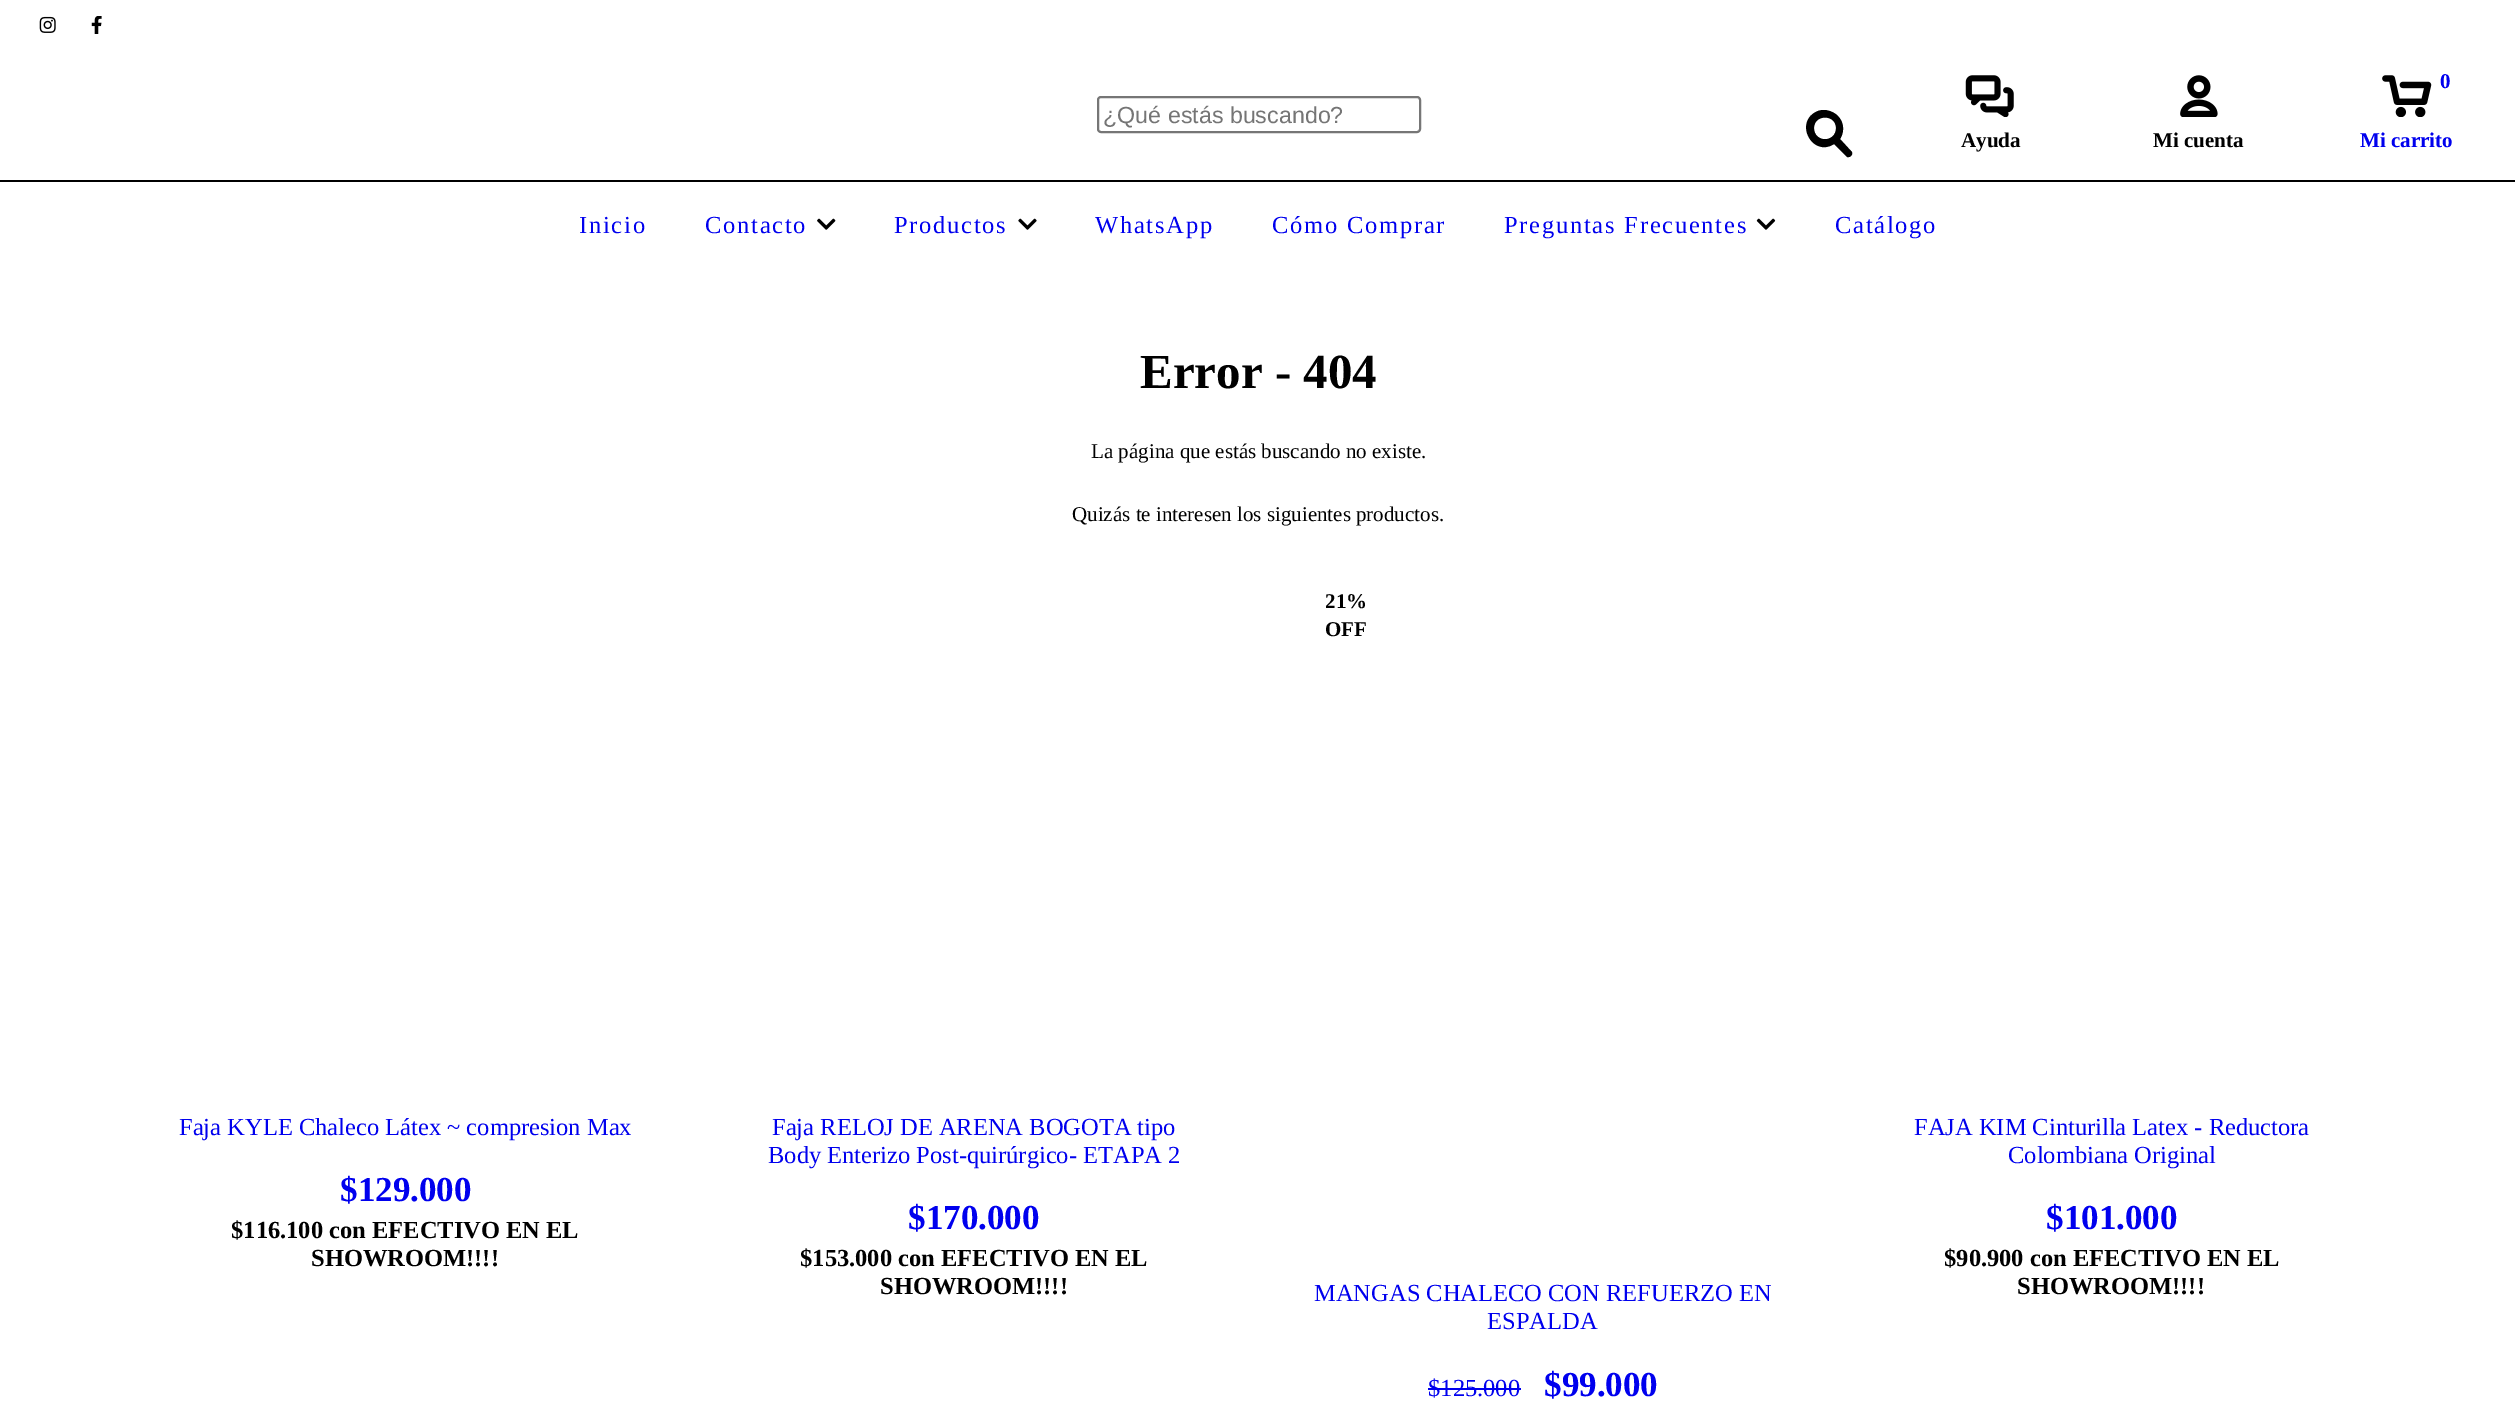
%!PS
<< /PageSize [2515 1408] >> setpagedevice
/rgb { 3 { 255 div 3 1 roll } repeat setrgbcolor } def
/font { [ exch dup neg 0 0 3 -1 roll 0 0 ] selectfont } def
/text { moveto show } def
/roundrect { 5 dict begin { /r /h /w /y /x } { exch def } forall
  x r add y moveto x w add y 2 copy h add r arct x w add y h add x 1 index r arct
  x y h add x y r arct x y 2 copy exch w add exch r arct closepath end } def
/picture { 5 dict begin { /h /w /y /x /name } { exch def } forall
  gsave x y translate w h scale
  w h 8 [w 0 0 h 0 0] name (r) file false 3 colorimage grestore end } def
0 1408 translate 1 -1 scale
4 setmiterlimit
255 255 255 rgb
0 0 2515 1408 rectfill
(img_01.rgb) 39 16 17 17 picture
(img_02.rgb) 91 16 11 18 picture
118 118 118 rgb
2 setlinewidth
1098 97 322 35 3 roundrect stroke
0 0 0 rgb
1851 151 moveto -11 -12 rlineto 6 -9 3 -21 -6 -26 rcurveto -5 -3 -11 -4 -16 -2 rcurveto -25 10 -6 47 16 33 rcurveto 13 13 rlineto 4 1 7 -4 4 -6 rcurveto closepath 1814 128 moveto 0 -14 22 -14 22 0 rcurveto 0 15 -22 15 -22 0 rcurveto closepath fill
(img_03.rgb) 1965 75 49 42 picture
(img_04.rgb) 2180 75 38 42 picture
(img_05.rgb) 2382 75 50 42 picture
0 180 2515 2 rectfill
(img_06.rgb) 817 218 19 12 picture
(img_07.rgb) 1018 218 19 12 picture
(img_08.rgb) 1756 218 20 12 picture
0 0 238 rgb
1428 1388 93 2 rectfill
/LiberationSans-Regular 23.25 font
117 117 117 rgb
(¿Qué estás buscando?) 1103 123 text
/LiberationSerif-Bold 21 font
0 0 0 rgb
(Ayuda) 1961 147 text
(Mi cuenta) 2153 147 text
0 0 238 rgb
(0) 2440 88 text
(Mi carrito) 2360 147 text
/LiberationSerif-Regular 24.5 font
579 233 moveto 1.75 0 (Inicio) ashow
705 233 moveto 1.75 0 (Contacto) ashow
894 233 moveto 1.75 0 (Productos) ashow
1095 233 moveto 1.75 0 (WhatsApp) ashow
1272 233 moveto 1.75 0 (Cómo Comprar) ashow
1504 233 moveto 1.75 0 (Preguntas Frecuentes) ashow
1835 233 moveto 1.75 0 (Catálogo) ashow
/LiberationSerif-Bold 49 font
0 0 0 rgb
(Error - 404) 1140 388 text
/LiberationSerif-Regular 21 font
(La página que estás buscando no existe.) 1091 458 text
(Quizás te interesen los siguientes productos.) 1072 521 text
/LiberationSerif-Regular 24.5 font
0 0 238 rgb
(Faja KYLE Chaleco Látex ~ compresion Max) 179 1135 text
/LiberationSerif-Bold 35 font
($129.000) 340 1201 text
/LiberationSerif-Bold 24.5 font
0 0 0 rgb
($116.100 con EFECTIVO EN EL) 231 1238 text
(SHOWROOM!!!!) 311 1266 text
/LiberationSerif-Regular 24.5 font
0 0 238 rgb
(Faja RELOJ DE ARENA BOGOTA tipo) 772 1135 text
(Body Enterizo Post-quirúrgico- ETAPA 2) 768 1163 text
/LiberationSerif-Bold 35 font
($170.000) 908 1229 text
/LiberationSerif-Bold 24.5 font
0 0 0 rgb
($153.000 con EFECTIVO EN EL) 800 1266 text
(SHOWROOM!!!!) 880 1294 text
/LiberationSerif-Bold 21 font
(21%) 1325 608 text
(OFF) 1325 636 text
/LiberationSerif-Regular 24.5 font
0 0 238 rgb
(MANGAS CHALECO CON REFUERZO EN) 1314 1301 text
(ESPALDA) 1487 1329 text
($125.000) 1428 1396 text
/LiberationSerif-Bold 35 font
($99.000) 1544 1396 text
/LiberationSerif-Regular 24.5 font
(FAJA KIM Cinturilla Latex - Reductora) 1914 1135 text
(Colombiana Original) 2008 1163 text
/LiberationSerif-Bold 35 font
($101.000) 2046 1229 text
/LiberationSerif-Bold 24.5 font
0 0 0 rgb
($90.900 con EFECTIVO EN EL) 1944 1266 text
(SHOWROOM!!!!) 2017 1294 text
showpage
